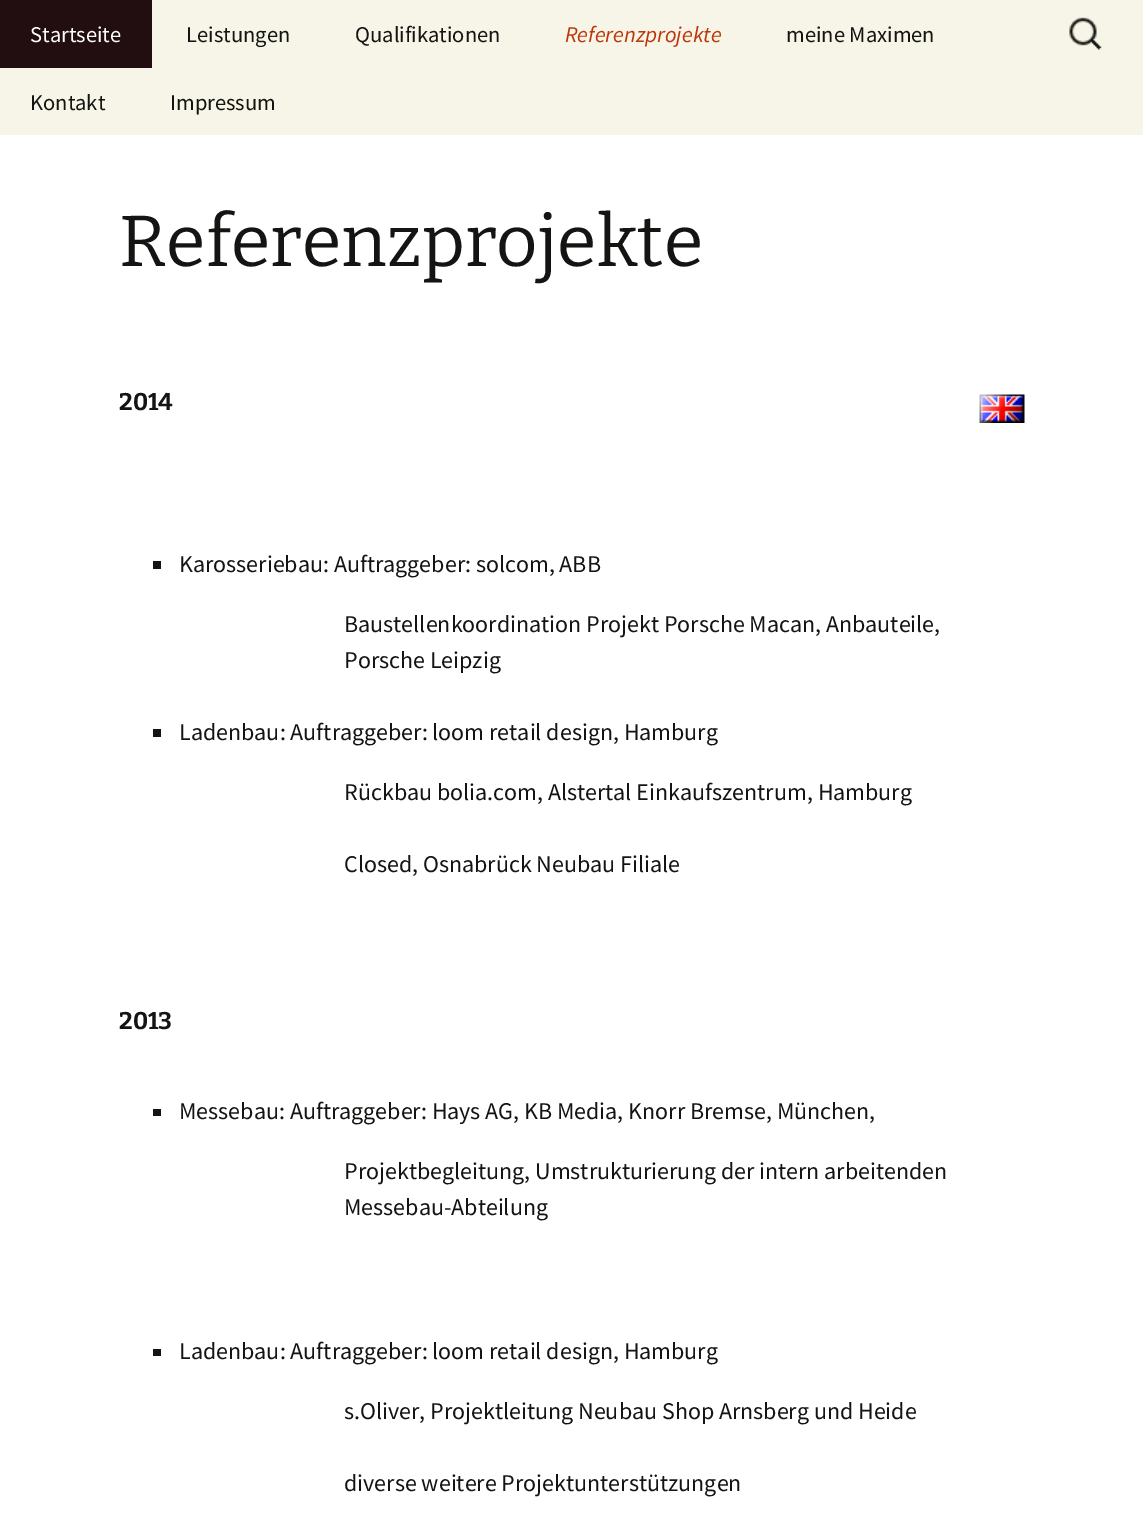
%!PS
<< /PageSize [1143 1525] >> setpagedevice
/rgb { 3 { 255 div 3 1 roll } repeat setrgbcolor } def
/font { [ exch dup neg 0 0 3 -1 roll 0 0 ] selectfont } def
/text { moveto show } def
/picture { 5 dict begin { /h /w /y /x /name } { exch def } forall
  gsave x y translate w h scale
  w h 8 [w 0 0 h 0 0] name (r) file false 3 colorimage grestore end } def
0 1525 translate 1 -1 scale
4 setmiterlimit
255 255 255 rgb
0 0 1143 1525 rectfill
247 245 231 rgb
0 0 1143 135 rectfill
34 14 16 rgb
0 0 152 68 rectfill
(img_01.rgb) 1069 17 33 33 picture
(img_02.rgb) 979 394 46 29 picture
20 20 18 rgb
153 561 8 8 rectfill
153 729 8 8 rectfill
153 1109 8 7 rectfill
153 1349 8 7 rectfill
/SourceSansPro-Regular 22.5 font
255 255 255 rgb
(Startseite) 30 42 text
20 20 18 rgb
(Leistungen) 186 42 text
(Qualifikationen) 355 42 text
/SourceSansPro-Italic 22.5 font
188 54 10 rgb
(Referenzprojekte) 565 42 text
/SourceSansPro-Regular 22.5 font
20 20 18 rgb
(meine Maximen) 786 42 text
(Kontakt) 30 110 text
(Impressum) 170 110 text
/Bitter-Thin 72 font
(Referenzprojekte) 119 266 text
/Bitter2-Thin 24 font
(2014) 119 410 text
/SourceSansPro-Regular 24 font
(Karosseriebau: Auftraggeber: solcom, ABB) 179 572 text
(Baustellenkoordination Projekt Porsche Macan, Anbauteile,) 344 632 text
(Porsche Leipzig) 344 668 text
(Ladenbau: Auftraggeber: loom retail design, Hamburg) 179 740 text
(Rückbau bolia.com, Alstertal Einkaufszentrum, Hamburg) 344 800 text
(Closed, Osnabrück Neubau Filiale) 344 872 text
/Bitter2-Thin 24 font
(2013) 119 1029 text
/SourceSansPro-Regular 24 font
(Messebau: Auftraggeber: Hays AG, KB Media, Knorr Bremse, München,) 179 1119 text
(Projektbegleitung, Umstrukturierung der intern arbeitenden) 344 1179 text
(Messebau-Abteilung) 344 1215 text
(Ladenbau: Auftraggeber: loom retail design, Hamburg) 179 1359 text
(s.Oliver, Projektleitung Neubau Shop Arnsberg und Heide) 344 1419 text
(diverse weitere Projektunterstützungen) 344 1491 text
showpage
